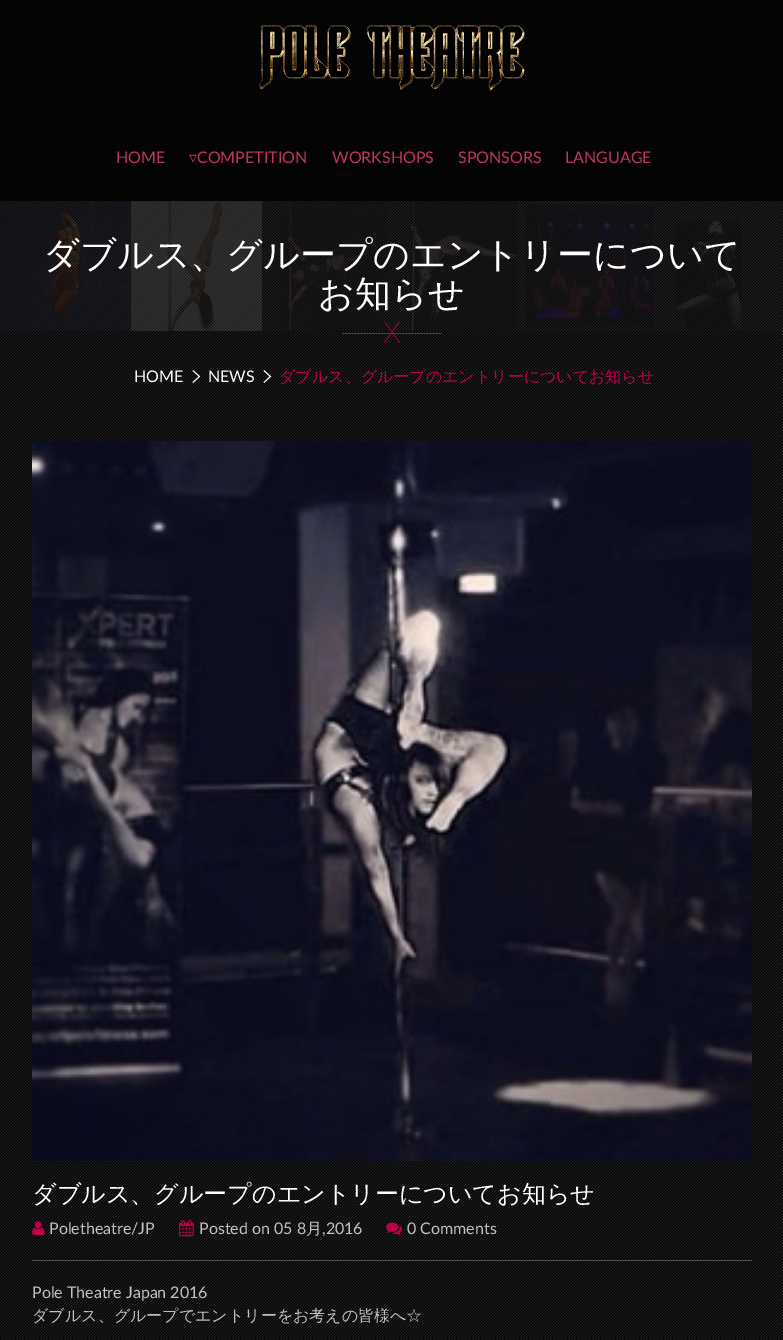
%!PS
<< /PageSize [783 1340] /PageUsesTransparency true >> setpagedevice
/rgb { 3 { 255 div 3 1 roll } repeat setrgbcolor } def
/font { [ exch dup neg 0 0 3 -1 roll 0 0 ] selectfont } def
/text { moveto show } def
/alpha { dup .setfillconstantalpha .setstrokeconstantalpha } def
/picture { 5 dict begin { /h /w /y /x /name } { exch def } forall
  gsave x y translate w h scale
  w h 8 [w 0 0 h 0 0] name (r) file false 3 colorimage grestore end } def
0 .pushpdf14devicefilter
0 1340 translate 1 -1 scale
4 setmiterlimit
255 255 255 rgb
0 0 783 1340 rectfill
(img_01.rgb) 0 0 783 1340 picture
0.8 alpha
0 0 0 rgb
0 0 783 201 rectfill
1 alpha
(img_02.rgb) 259 24 266 67 picture
0.1 alpha
51 51 51 rgb
0 201 131 130 rectfill
1 alpha
(img_03.rgb) 0 201 131 130 picture
0.1 alpha
131 201 131 130 rectfill
1 alpha
(img_04.rgb) 131 201 131 130 picture
0.1 alpha
262 201 131 130 rectfill
1 alpha
(img_05.rgb) 280 202 107 129 picture
0.1 alpha
393 201 130 130 rectfill
1 alpha
(img_06.rgb) 410 201 107 130 picture
0.1 alpha
523 201 130 130 rectfill
1 alpha
(img_07.rgb) 526 205 127 122 picture
0.1 alpha
653 201 130 130 rectfill
1 alpha
(img_08.rgb) 676 221 65 109 picture
190 0 72 rgb
342 333 100 1 rectfill
(img_09.rgb) 192 370 9 13 picture
(img_10.rgb) 263 370 9 13 picture
(img_11.rgb) 32 441 720 720 picture
(img_12.rgb) 32 1221 13 15 picture
(img_13.rgb) 179 1220 15 17 picture
(img_14.rgb) 386 1222 16 14 picture
81 81 81 rgb
32 1260 720 1 rectfill
/Lato-Regular 16 font
197 49 105 rgb
(HOME) 116 163 text
/DejaVuSans-Regular 16 font
(▿) 189 163 text
/Lato-Regular 16 font
(COMPETITION) 197 163 text
(WORKSHOPS) 332 163 text
(SPONSORS) 458 163 text
(LANGUAGE) 565 163 text
/WenQuanYiZenHei-Medium 36 font
255 255 255 rgb
(ダブルス、グループのエントリーについて) 43 267 text
(お知らせ) 318 306 text
/Roboto-Thin 30 font
190 0 72 rgb
(X) 383 343 text
/Lato-Regular 16 font
255 255 255 rgb
(HOME) 134 382 text
(NEWS) 208 382 text
/WenQuanYiZenHei-Medium 16 font
190 0 72 rgb
(ダブルス、グループのエントリーについてお知らせ) 279 382 text
/WenQuanYiZenHei-Medium 24 font
255 255 255 rgb
(ダブルス、グループのエントリーについてお知らせ) 32 1202 text
/Lato-Regular 16 font
194 194 194 rgb
(Poletheatre/JP) 49 1234 text
(Posted on 05 8) 199 1234 text
/WenQuanYiZenHei-Medium 16 font
(月) 306 1234 text
/Lato-Regular 16 font
(,2016) 322 1234 text
(0 Comments) 407 1234 text
(Pole Theatre Japan 2016) 32 1298 text
/WenQuanYiZenHei-Medium 16 font
(ダブルス、グループでエントリーをお考えの皆様へ☆) 32 1321 text
.poppdf14devicefilter showpage
